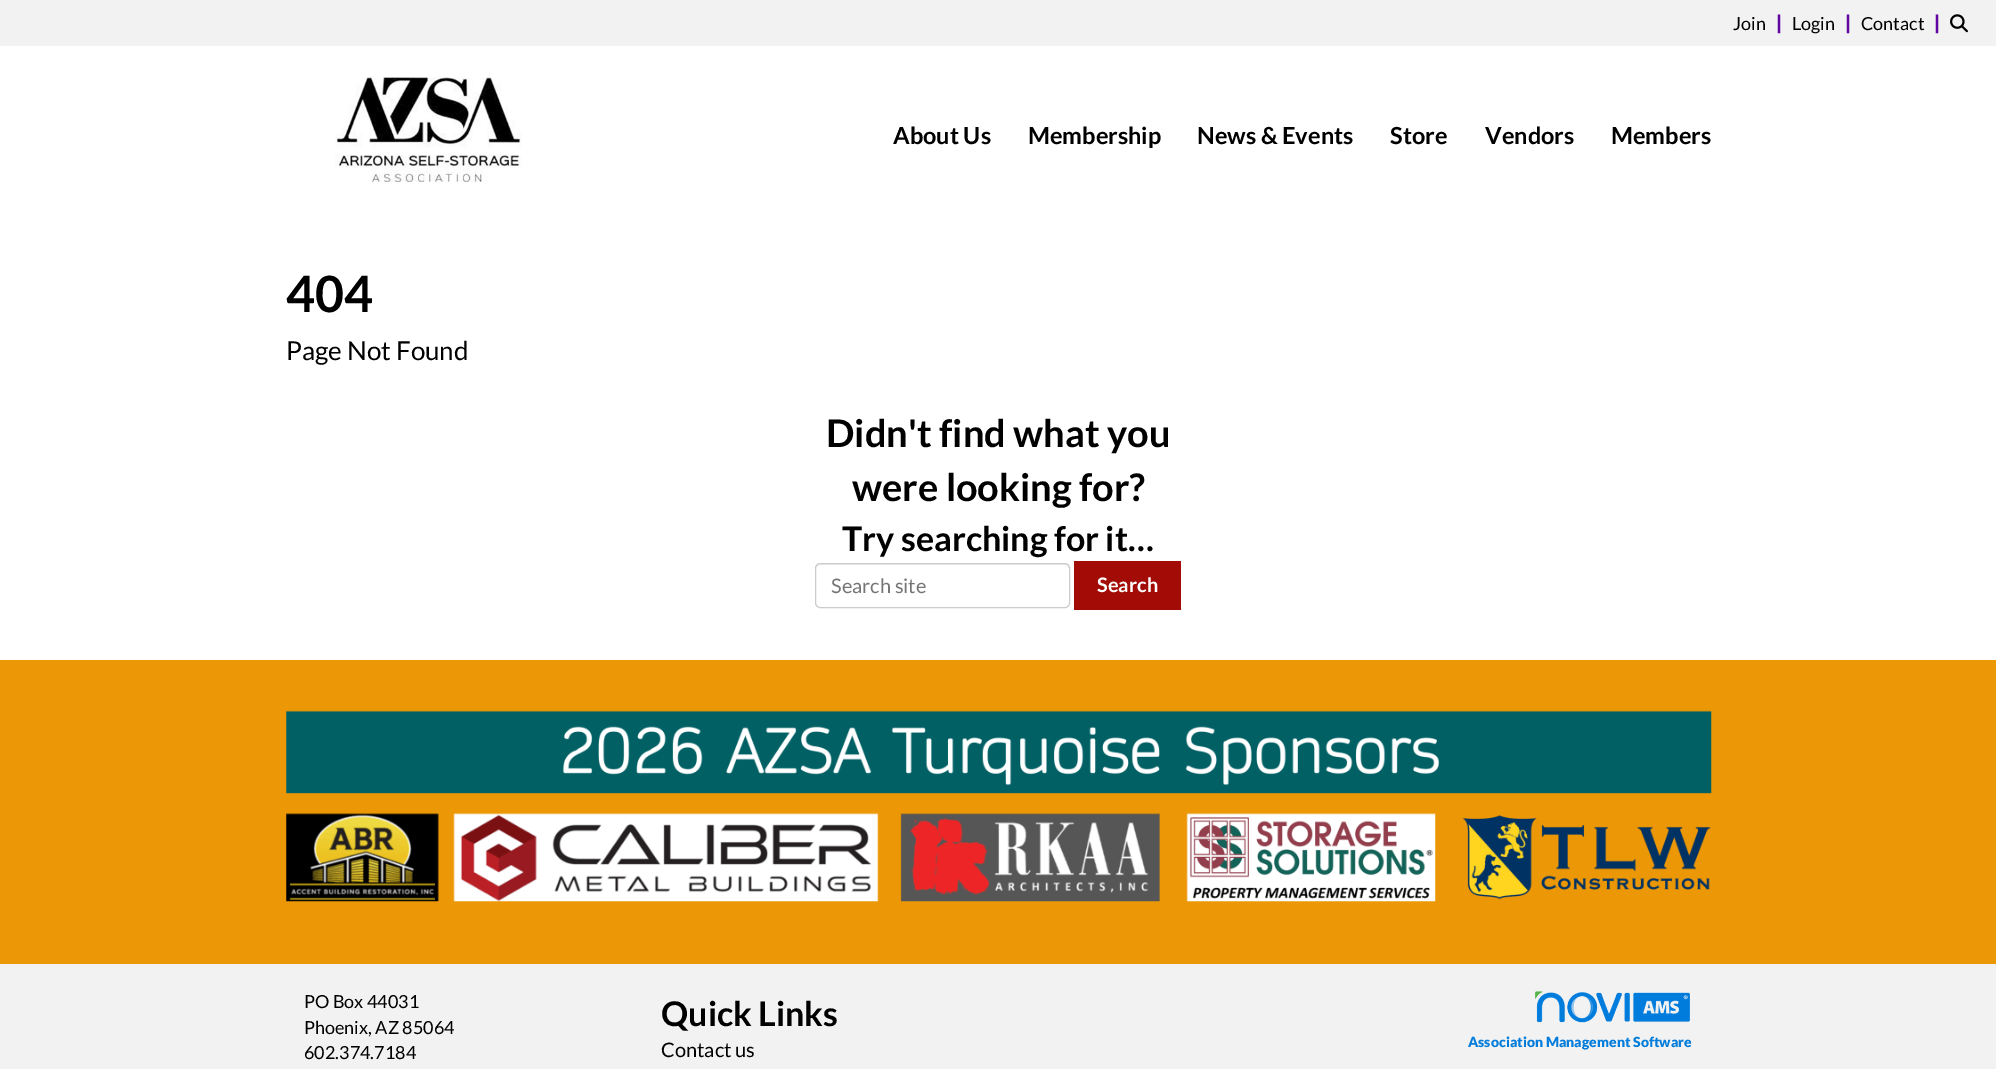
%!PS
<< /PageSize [1996 1069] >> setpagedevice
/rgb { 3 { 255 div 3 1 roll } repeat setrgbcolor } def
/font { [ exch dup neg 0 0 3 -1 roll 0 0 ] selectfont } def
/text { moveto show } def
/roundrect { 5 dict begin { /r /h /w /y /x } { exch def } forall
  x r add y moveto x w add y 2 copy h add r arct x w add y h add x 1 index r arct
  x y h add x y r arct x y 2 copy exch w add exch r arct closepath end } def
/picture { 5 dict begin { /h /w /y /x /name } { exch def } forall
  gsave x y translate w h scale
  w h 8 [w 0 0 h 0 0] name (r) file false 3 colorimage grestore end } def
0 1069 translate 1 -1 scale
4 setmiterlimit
255 255 255 rgb
0 0 1996 1069 rectfill
242 242 242 rgb
0 0 1996 46 rectfill
(img_01.rgb) 1950 14 18 19 picture
(img_02.rgb) 335 77 187 105 picture
236 236 236 rgb
820 565 moveto 245 0 rlineto 2 0 4 2 4 4 rcurveto 0 -1 rlineto 0 -2 -2 -4 -4 -4 rcurveto -245 0 rlineto -2 0 -4 2 -4 4 rcurveto 0 1 rlineto 0 -2 2 -4 4 -4 rcurveto closepath fill
204 204 204 rgb
815.5 563.5 254 44 4.5 roundrect stroke
162 11 6 rgb
1074 561 107 49 rectfill
236 151 6 rgb
0 660 1996 304 rectfill
(img_03.rgb) 286 710 1426 192 picture
242 242 242 rgb
0 964 1996 105 rectfill
(img_04.rgb) 1535 991 155 32 picture
/Lato-Regular 18 font
0 0 0 rgb
(Join) 1733 30 text
/Lato-Black 20 font
97 6 162 rgb
(|) 1776 30 text
/Lato-Regular 18 font
0 0 0 rgb
(Login) 1792 30 text
/Lato-Black 20 font
97 6 162 rgb
(|) 1845 30 text
/Lato-Regular 18 font
0 0 0 rgb
(Contact) 1861 30 text
/Lato-Black 20 font
97 6 162 rgb
(|) 1934 30 text
/Lato-Bold 23.5 font
0 0 0 rgb
(About Us) 893 144 text
(Membership) 1028 144 text
(News & Events) 1197 144 text
(Store) 1390 144 text
(Vendors) 1485 144 text
(Members) 1611 144 text
/Lato-Bold 50 font
(404) 286 312 text
/Lato-Regular 26 font
(Page Not Found) 286 360 text
/Lato-Bold 38 font
(Didn't find what you) 826 447 text
(were looking for?) 852 501 text
/Lato-Bold 34 font
(Try searching for it…) 842 551 text
/Lato-Regular 20 font
117 117 117 rgb
(Search site) 831 593 text
/Lato-Bold 20 font
255 255 255 rgb
(Search) 1097 592 text
/Lato-Regular 18 font
0 0 0 rgb
(PO Box 44031) 304 1008 text
(Phoenix, AZ 85064) 304 1034 text
(602.374.7184) 304 1059 text
/Lato-Bold 34 font
(Quick Links) 661 1026 text
/Lato-Regular 20 font
(Contact us) 661 1057 text
/Lato-Black 14 font
3 125 220 rgb
(Association Management Software) 1468 1047 text
showpage
